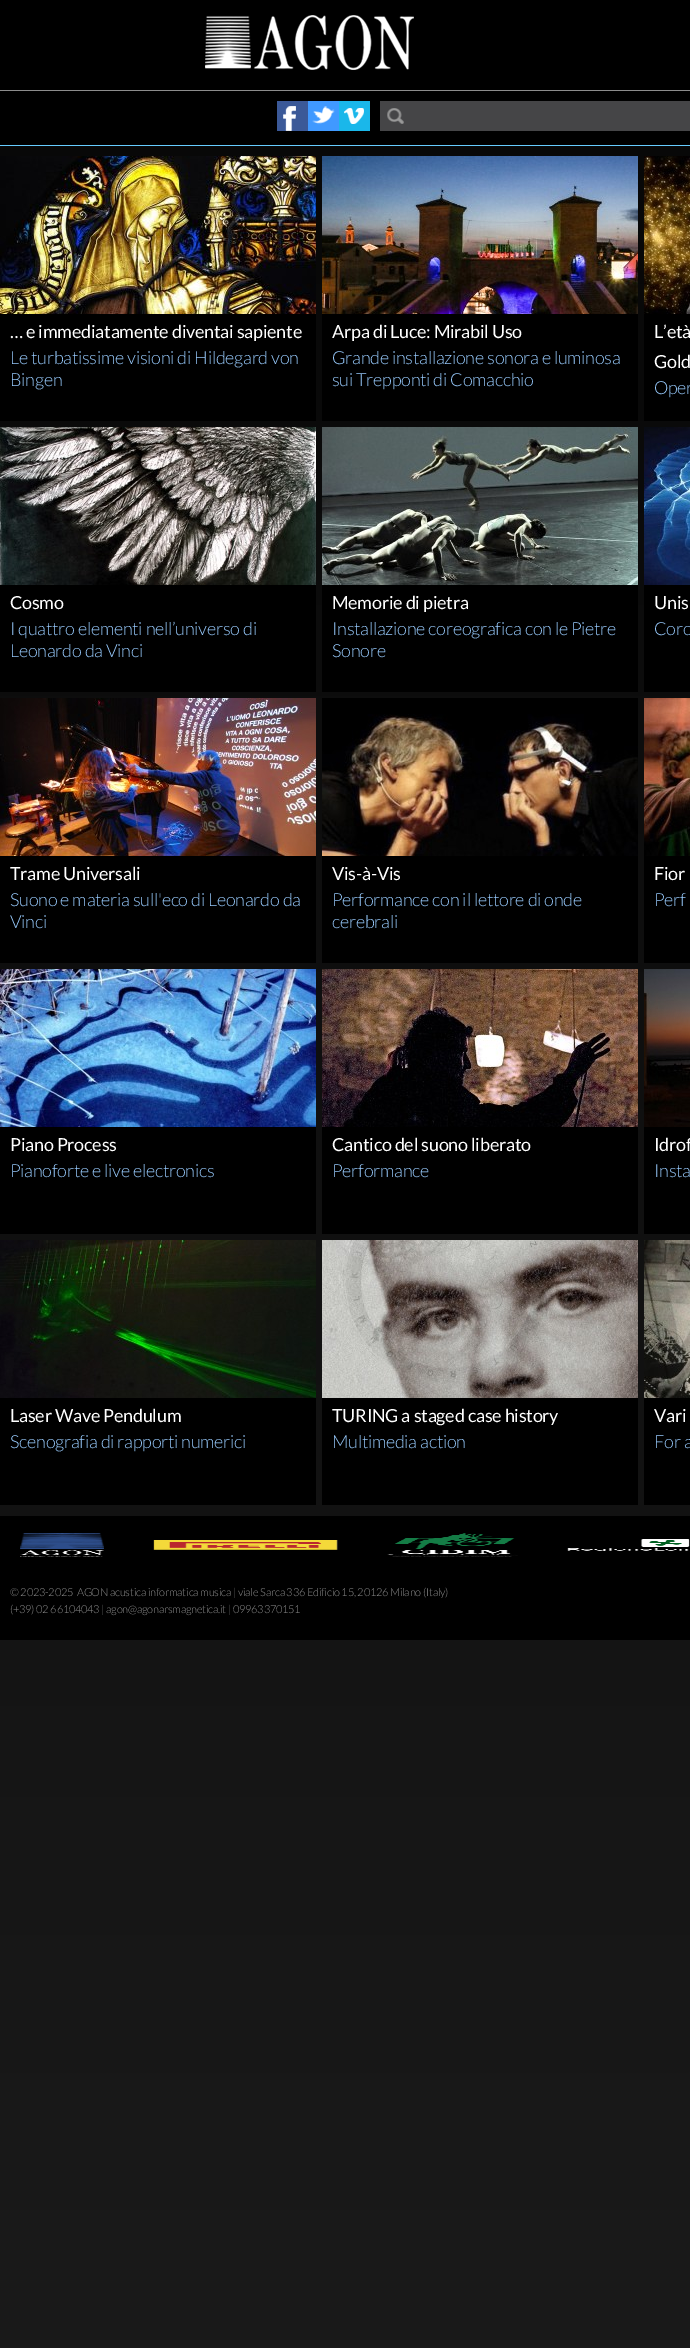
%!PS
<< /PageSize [690 2348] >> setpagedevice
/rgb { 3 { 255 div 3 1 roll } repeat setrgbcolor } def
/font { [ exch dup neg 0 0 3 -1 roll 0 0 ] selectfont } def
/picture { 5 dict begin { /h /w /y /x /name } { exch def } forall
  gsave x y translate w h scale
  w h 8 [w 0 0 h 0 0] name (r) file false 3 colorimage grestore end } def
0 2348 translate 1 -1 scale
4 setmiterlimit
255 255 255 rgb
0 0 690 2348 rectfill
gsave 0 146 moveto 690 0 rlineto 0 2202 rlineto -690 0 rlineto closepath clip newpath
<< /ShadingType 2 /ColorSpace /DeviceRGB /Coords [345 0 345 2348] /Extend [true true] /Function << /FunctionType 2 /Domain [0 1] /C0 [0.027 0.027 0.027] /C1 [0.102 0.102 0.102] /N 1 >> >> shfill grestore
0 0 0 rgb
0 0 690 145 rectfill
102 204 255 rgb
0 145 690 1 rectfill
(img_01.rgb) 205 15 209 55 picture
140 140 140 rgb
0 90 690 1 rectfill
59 89 152 rgb
277 101 31 30 rectfill
(img_02.rgb) 283 106 13 25 picture
64 153 255 rgb
308 101 31 30 rectfill
(img_03.rgb) 312 106 23 19 picture
26 183 234 rgb
339 101 31 30 rectfill
(img_04.rgb) 344 108 20 16 picture
69 69 71 rgb
380 101 310 30 rectfill
(img_05.rgb) 387 108 17 16 picture
0 0 0 rgb
0 314 316 107 rectfill
(img_06.rgb) 0 156 316 158 picture
322 314 316 107 rectfill
(img_07.rgb) 322 156 316 158 picture
644 314 46 107 rectfill
(img_08.rgb) 644 156 46 158 picture
0 585 316 107 rectfill
(img_09.rgb) 0 427 316 158 picture
322 585 316 107 rectfill
(img_10.rgb) 322 427 316 158 picture
644 585 46 107 rectfill
(img_11.rgb) 644 427 46 158 picture
0 856 316 107 rectfill
(img_12.rgb) 0 698 316 158 picture
322 698 316 265 rectfill
(img_13.rgb) 322 714 316 142 picture
644 856 46 107 rectfill
(img_14.rgb) 644 698 46 158 picture
0 1127 316 107 rectfill
(img_15.rgb) 0 969 316 158 picture
322 1127 316 107 rectfill
(img_16.rgb) 322 969 316 158 picture
644 1127 46 107 rectfill
(img_17.rgb) 644 969 46 158 picture
0 1398 316 107 rectfill
(img_18.rgb) 0 1240 316 158 picture
322 1398 316 107 rectfill
(img_19.rgb) 322 1240 316 158 picture
644 1398 46 107 rectfill
(img_20.rgb) 644 1240 46 158 picture
0 1516 690 124 rectfill
(img_21.rgb) 20 1533 670 24 picture
/Lato-Regular 18 font
255 255 255 rgb
10 338 moveto -0.25 0 (… e immediatamente diventai sapiente) ashow
/Lato-Light 18 font
153 204 255 rgb
10 364 moveto -0.25 0 (Le turbatissime visioni di Hildegard von) ashow
10 386 moveto -0.25 0 (Bingen) ashow
/Lato-Regular 18 font
255 255 255 rgb
332 338 moveto -0.25 0 (Arpa di Luce: Mirabil Uso) ashow
/Lato-Light 18 font
153 204 255 rgb
332 364 moveto -0.25 0 (Grande installazione sonora e luminosa) ashow
332 386 moveto -0.25 0 (sui Trepponti di Comacchio) ashow
/Lato-Regular 18 font
255 255 255 rgb
654 338 moveto -0.25 0 (L’età) ashow
654 368 moveto -0.25 0 (Gold) ashow
/Lato-Light 18 font
153 204 255 rgb
654 394 moveto -0.25 0 (Oper) ashow
/Lato-Regular 18 font
255 255 255 rgb
10 609 moveto -0.25 0 (Cosmo) ashow
/Lato-Light 18 font
153 204 255 rgb
10 635 moveto -0.25 0 (I quattro elementi nell’universo di) ashow
10 657 moveto -0.25 0 (Leonardo da Vinci) ashow
/Lato-Regular 18 font
255 255 255 rgb
332 609 moveto -0.25 0 (Memorie di pietra) ashow
/Lato-Light 18 font
153 204 255 rgb
332 635 moveto -0.25 0 (Installazione coreografica con le Pietre) ashow
332 657 moveto -0.25 0 (Sonore) ashow
/Lato-Regular 18 font
255 255 255 rgb
654 609 moveto -0.25 0 (Unis) ashow
/Lato-Light 18 font
153 204 255 rgb
654 635 moveto -0.25 0 (Coro) ashow
/Lato-Regular 18 font
255 255 255 rgb
10 880 moveto -0.25 0 (Trame Universali) ashow
/Lato-Light 18 font
153 204 255 rgb
10 906 moveto -0.25 0 (Suono e materia sull'eco di Leonardo da) ashow
10 928 moveto -0.25 0 (Vinci) ashow
/Lato-Regular 18 font
255 255 255 rgb
332 880 moveto -0.25 0 (Vis-à-Vis) ashow
/Lato-Light 18 font
153 204 255 rgb
332 906 moveto -0.25 0 (Performance con il lettore di onde) ashow
332 928 moveto -0.25 0 (cerebrali) ashow
/Lato-Regular 18 font
255 255 255 rgb
654 880 moveto -0.25 0 (Fior) ashow
/Lato-Light 18 font
153 204 255 rgb
654 906 moveto -0.25 0 (Perf) ashow
/Lato-Regular 18 font
255 255 255 rgb
10 1151 moveto -0.25 0 (Piano Process) ashow
/Lato-Light 18 font
153 204 255 rgb
10 1177 moveto -0.25 0 (Pianoforte e live electronics) ashow
/Lato-Regular 18 font
255 255 255 rgb
332 1151 moveto -0.25 0 (Cantico del suono liberato) ashow
/Lato-Light 18 font
153 204 255 rgb
332 1177 moveto -0.25 0 (Performance) ashow
/Lato-Regular 18 font
255 255 255 rgb
654 1151 moveto -0.25 0 (Idrof) ashow
/Lato-Light 18 font
153 204 255 rgb
654 1177 moveto -0.25 0 (Insta) ashow
/Lato-Regular 18 font
255 255 255 rgb
10 1422 moveto -0.25 0 (Laser Wave Pendulum) ashow
/Lato-Light 18 font
153 204 255 rgb
10 1448 moveto -0.25 0 (Scenografia di rapporti numerici) ashow
/Lato-Regular 18 font
255 255 255 rgb
332 1422 moveto -0.25 0 (TURING a staged case history) ashow
/Lato-Light 18 font
153 204 255 rgb
332 1448 moveto -0.25 0 (Multimedia action) ashow
/Lato-Regular 18 font
255 255 255 rgb
654 1422 moveto -0.25 0 (Vari) ashow
/Lato-Light 18 font
153 204 255 rgb
654 1448 moveto -0.25 0 (For a) ashow
/Lato-Light 11 font
140 140 140 rgb
10 1596 moveto -0.25 0 (© 2023-2025  AGON acustica informatica musica | viale Sarca 336 Edificio 15, 20126 Milano \(Italy\)) ashow
10 1613 moveto -0.25 0 (\(+39\) 02 66104043 | agon@agonarsmagnetica.it | 09963370151) ashow
showpage
